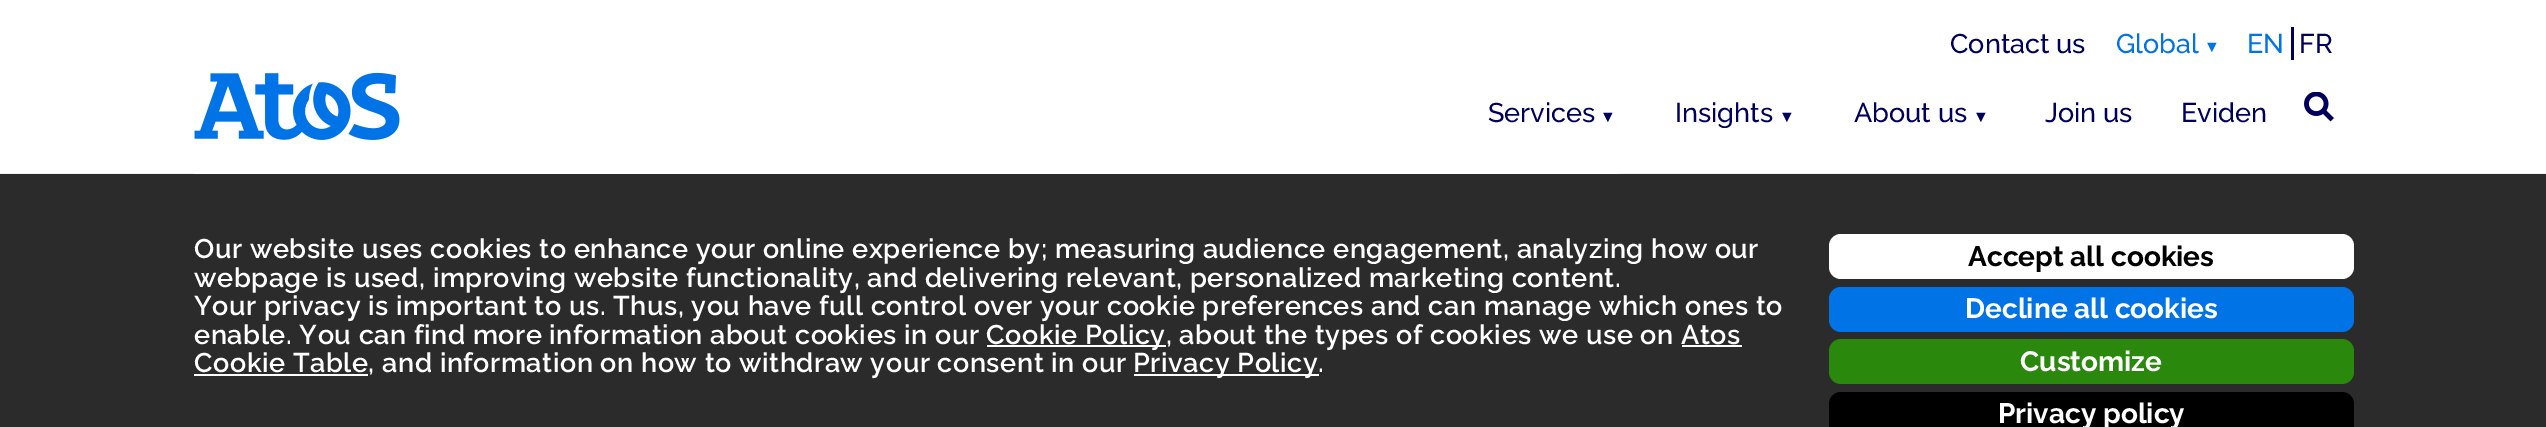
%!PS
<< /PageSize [2546 427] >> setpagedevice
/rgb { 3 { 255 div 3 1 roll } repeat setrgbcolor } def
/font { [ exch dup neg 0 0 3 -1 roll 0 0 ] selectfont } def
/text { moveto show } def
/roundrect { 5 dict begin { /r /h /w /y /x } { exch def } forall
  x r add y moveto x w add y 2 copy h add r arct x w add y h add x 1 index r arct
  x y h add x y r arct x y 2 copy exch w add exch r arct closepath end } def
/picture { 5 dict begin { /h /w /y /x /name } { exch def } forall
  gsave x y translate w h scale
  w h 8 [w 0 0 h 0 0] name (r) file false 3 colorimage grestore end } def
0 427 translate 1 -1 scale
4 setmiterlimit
255 255 255 rgb
0 0 2546 427 rectfill
0 0 92 rgb
2291 27 3 33 rectfill
(img_01.rgb) 194 72 206 68 picture
(img_02.rgb) 2304 92 30 30 picture
242 242 242 rgb
0 173 2546 1 rectfill
255 255 255 rgb
3 setlinewidth
195.5 174.5 1422 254 rectstroke
43 43 43 rgb
0 174 2546 253 rectfill
255 255 255 rgb
987 345 179 2 rectfill
1682 345 60 2 rectfill
194 374 174 2 rectfill
1134 374 185 2 rectfill
1829 234 525 45 12 roundrect fill
0 115 230 rgb
1829 287 525 45 12 roundrect fill
42 136 13 rgb
1829 339 525 45 12 roundrect fill
0 0 0 rgb
1829 392 525 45 12 roundrect fill
/Raleway-Medium 27 font
0 0 92 rgb
(Contact us) 1950 53 text
0 115 230 rgb
(Global) 2116 53 text
/LiberationSans-Regular 16 font
2204 52 moveto 5 0 (▼) ashow
/Raleway-Medium 27 font
(EN) 2247 53 text
0 0 92 rgb
(FR) 2299 53 text
(Services) 1488 122 text
/LiberationSans-Regular 16 font
1600 122 moveto 5 0 (▼) ashow
/Raleway-Medium 27 font
(Insights) 1675 122 text
/LiberationSans-Regular 16 font
1779 122 moveto 5 0 (▼) ashow
/Raleway-Medium 27 font
(About us) 1854 122 text
/LiberationSans-Regular 16 font
1973 122 moveto 5 0 (▼) ashow
/Raleway-Medium 27 font
(Join us) 2045 122 text
(Eviden) 2181 122 text
/Raleway-SemiBold 27 font
255 255 255 rgb
194 258 moveto 0.54 0 (Our website uses cookies to enhance your online experience by; measuring audience engagement, analyzing how our) ashow
194 287 moveto 0.54 0 (webpage is used, improving website functionality, and delivering relevant, personalized marketing content.) ashow
194 315 moveto 0.54 0 (Your privacy is important to us. Thus, you have full control over your cookie preferences and can manage which ones to) ashow
194 344 moveto 0.54 0 (enable. You can find more information about cookies in our) ashow
986 344 moveto 0.54 0 (Cookie Policy, about the types of cookies we use on Atos) ashow
194 372 moveto 0.54 0 (Cookie Table, and information on how to withdraw your consent in our) ashow
1133 372 moveto 0.54 0 (Privacy Policy.) ashow
/Raleway-Bold 28 font
0 0 0 rgb
(Accept all cookies) 1968 266 text
255 255 255 rgb
(Decline all cookies) 1965 318 text
(Customize) 2020 371 text
(Privacy policy) 1998 423 text
showpage
